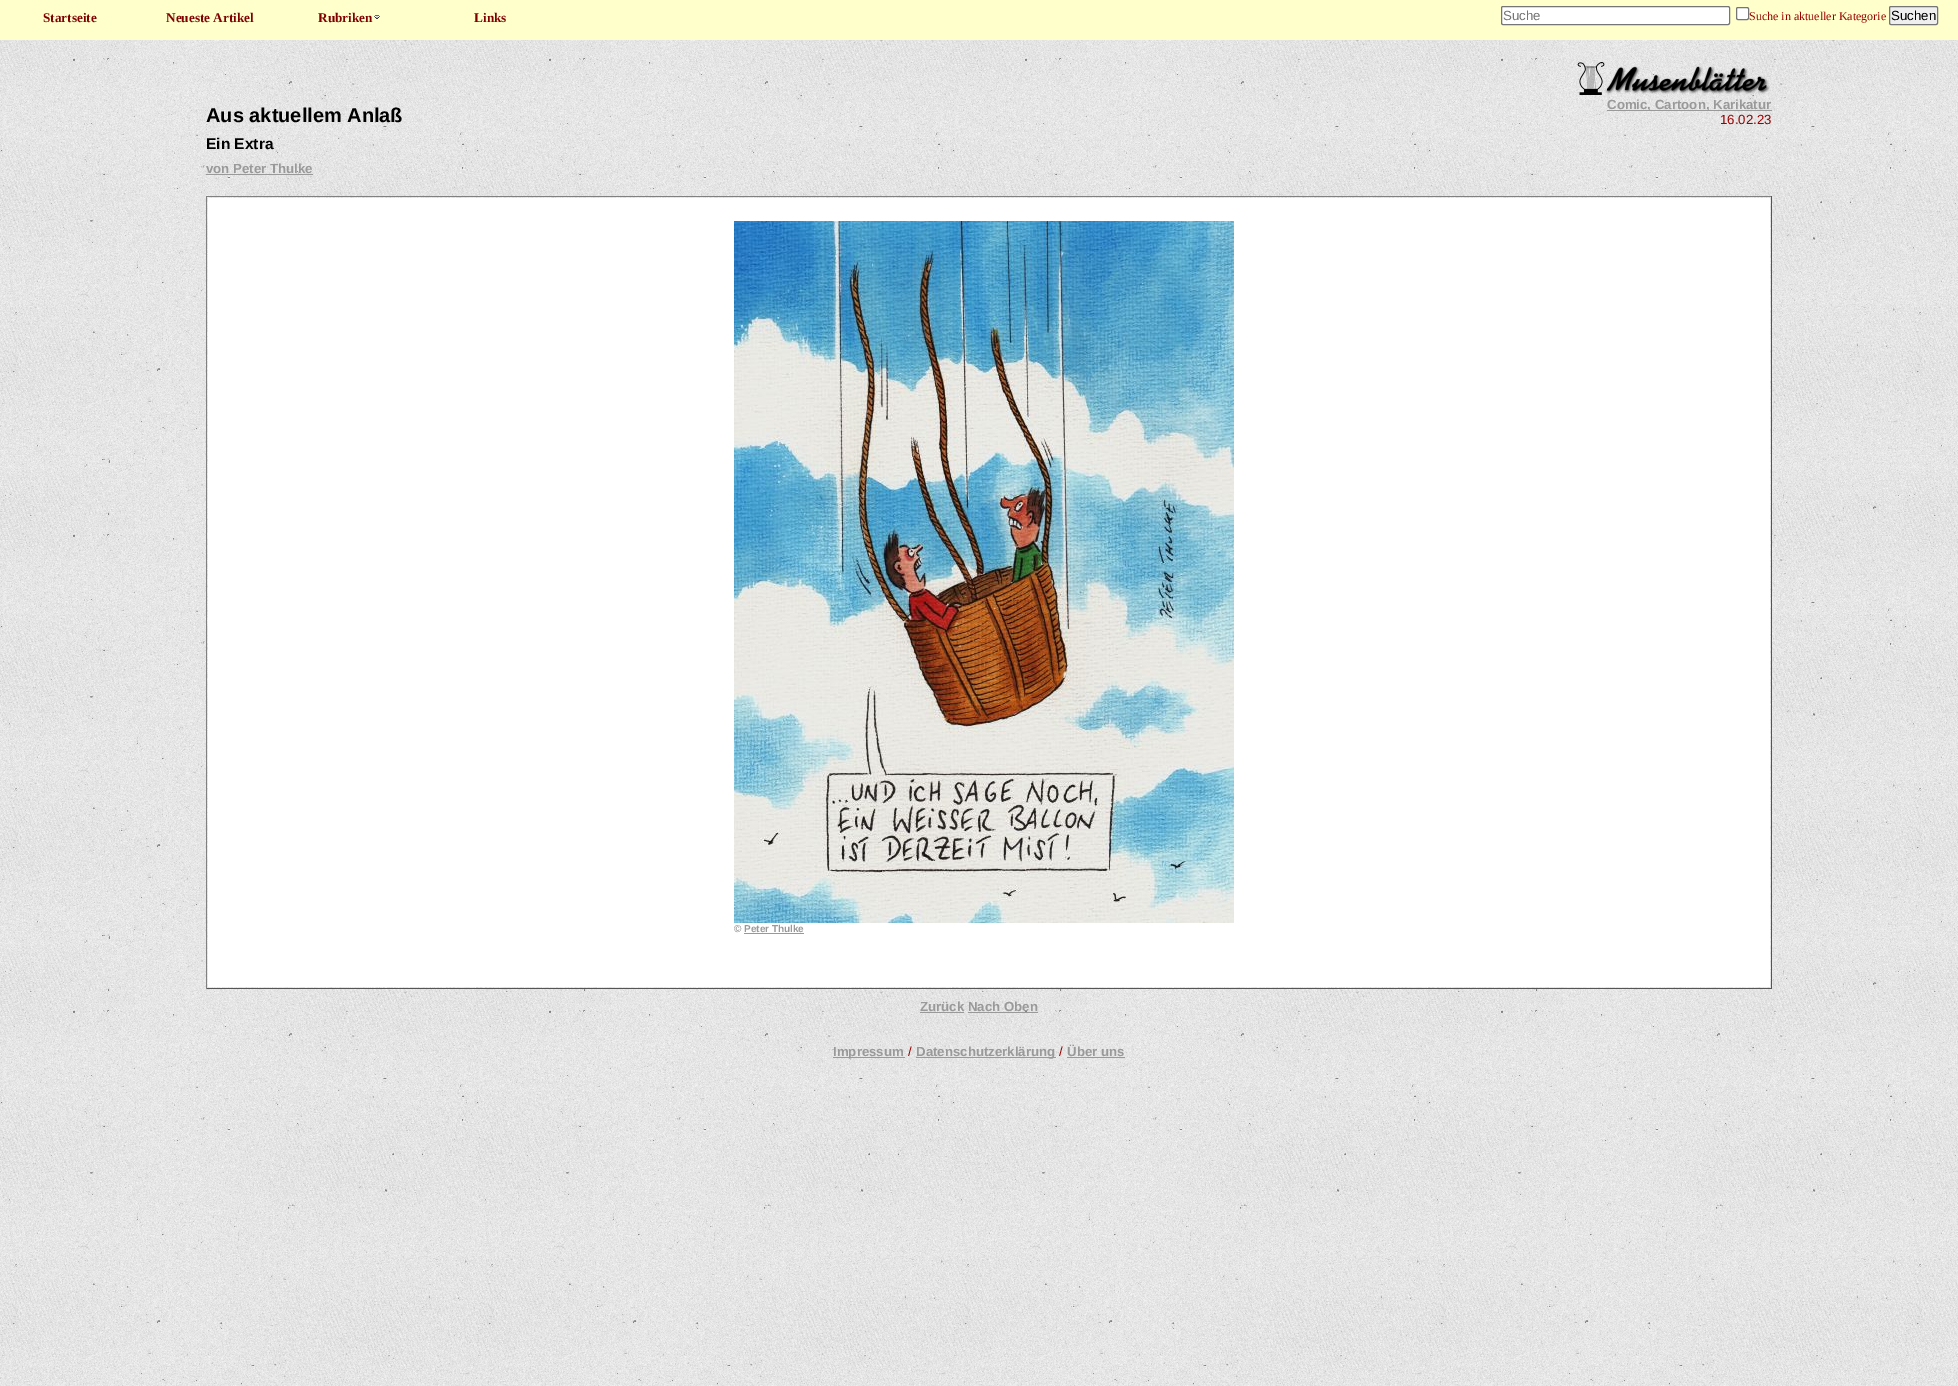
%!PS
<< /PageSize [1958 1386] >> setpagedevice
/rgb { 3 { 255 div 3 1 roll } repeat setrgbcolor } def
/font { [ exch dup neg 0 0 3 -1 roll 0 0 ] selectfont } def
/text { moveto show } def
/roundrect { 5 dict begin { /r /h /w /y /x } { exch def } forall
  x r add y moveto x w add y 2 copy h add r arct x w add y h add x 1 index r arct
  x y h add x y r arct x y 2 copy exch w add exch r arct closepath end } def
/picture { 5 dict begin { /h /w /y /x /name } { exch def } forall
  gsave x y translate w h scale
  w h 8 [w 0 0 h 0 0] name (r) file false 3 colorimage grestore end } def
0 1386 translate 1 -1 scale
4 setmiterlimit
255 255 255 rgb
0 0 1958 1386 rectfill
(img_01.rgb) 0 40 1958 1346 picture
255 255 204 rgb
0 0 1958 40 rectfill
(img_02.rgb) 374 15 6 4 picture
255 255 255 rgb
1501.5 6.5 228 18 1.5 roundrect gsave fill grestore
118 118 118 rgb
stroke
255 255 255 rgb
1736.5 7.5 12 12 1.5 roundrect gsave fill grestore
118 118 118 rgb
stroke
239 239 239 rgb
1889.5 6.5 48 18 1.5 roundrect gsave fill grestore
118 118 118 rgb
stroke
153 153 153 rgb
206 174 107 1 rectfill
(img_03.rgb) 1577 62 193 33 picture
1607 110 165 1 rectfill
128 128 128 rgb
206 196 1566 1 rectfill
85 85 85 rgb
1771 196 1 793 rectfill
206 988 1566 1 rectfill
128 128 128 rgb
206 196 1 793 rectfill
255 255 255 rgb
208 198 1562 789 rectfill
(img_04.rgb) 734 221 500 702 picture
153 153 153 rgb
744 933 60 1 rectfill
920 1012 44 1 rectfill
968 1012 70 1 rectfill
833 1057 72 1 rectfill
916 1057 140 1 rectfill
1067 1057 58 1 rectfill
/LiberationSerif-Bold 13.25 font
128 0 0 rgb
(Startseite) 43 22 text
(Neueste Artikel) 166 22 text
(Rubriken) 318 22 text
(Links) 474 22 text
/LiberationSans-Regular 13.25 font
117 117 117 rgb
(Suche) 1503 20 text
/LiberationSerif-Regular 12 font
153 0 0 rgb
(Suche in aktueller Kategorie) 1749 20 text
/LiberationSans-Regular 13.25 font
0 0 0 rgb
(Suchen) 1891 20 text
/LiberationSans-Bold 20 font
(Aus aktuellem Anlaß) 206 122 text
/LiberationSans-Bold 15.5 font
(Ein Extra) 206 149 text
/LiberationSans-Bold 13.25 font
153 153 153 rgb
(von Peter Thulke) 206 173 text
(Comic, Cartoon, Karikatur) 1607 109 text
/LiberationSans-Regular 13.25 font
153 0 0 rgb
(16.02.23) 1720 124 text
/LiberationSans-Regular 10 font
128 128 128 rgb
(©) 734 932 text
/LiberationSans-Bold 10 font
153 153 153 rgb
(Peter Thulke) 744 932 text
/LiberationSans-Bold 13.25 font
(Zurück Nach Oben) 920 1011 text
(Impressum) 833 1056 text
/LiberationSans-Regular 13.25 font
153 0 0 rgb
(/) 908 1056 text
/LiberationSans-Bold 13.25 font
153 153 153 rgb
(Datenschutzerklärung) 916 1056 text
/LiberationSans-Regular 13.25 font
153 0 0 rgb
(/) 1059 1056 text
/LiberationSans-Bold 13.25 font
153 153 153 rgb
(Über uns) 1067 1056 text
showpage
